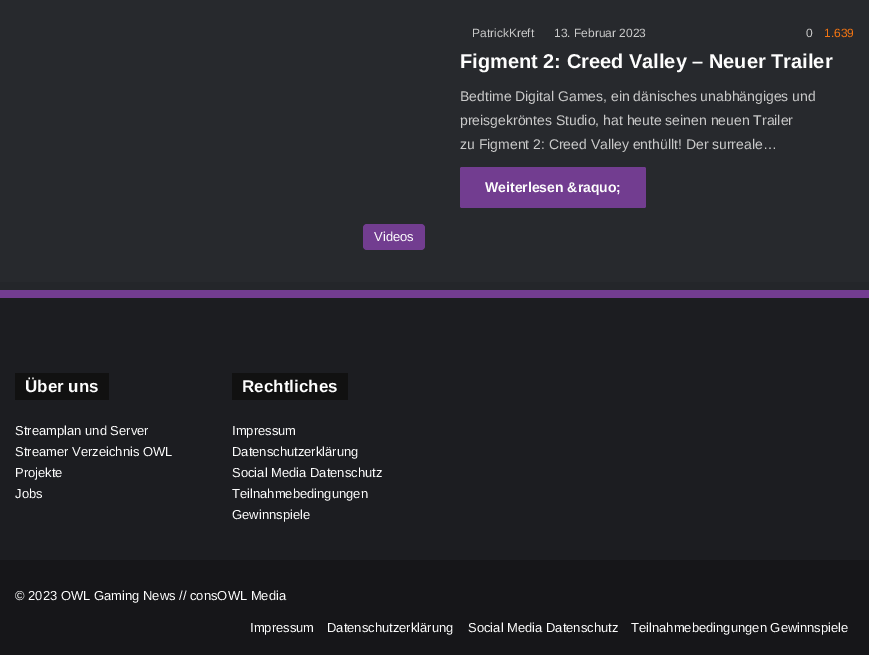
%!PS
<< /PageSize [869 655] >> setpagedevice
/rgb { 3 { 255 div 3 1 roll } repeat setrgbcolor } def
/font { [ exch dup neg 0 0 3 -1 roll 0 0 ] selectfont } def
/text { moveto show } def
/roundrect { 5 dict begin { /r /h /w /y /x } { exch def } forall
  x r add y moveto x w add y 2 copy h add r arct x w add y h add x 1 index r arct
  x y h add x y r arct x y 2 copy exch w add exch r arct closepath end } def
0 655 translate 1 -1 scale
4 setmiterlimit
39 41 45 rgb
0 0 869 655 rectfill
114 61 144 rgb
460 167 186 41 2 roundrect fill
363 224 62 26 4 roundrect fill
28 29 33 rgb
0 298 869 262 rectfill
36 38 42 rgb
0 282 869 8 rectfill
115 61 145 rgb
0 290 869 8 rectfill
17 17 17 rgb
15 373 94 27 rectfill
232 373 116 27 rectfill
22 22 25 rgb
0 560 869 95 rectfill
/LiberationSans-Regular 12 font
202 202 202 rgb
(PatrickKreft) 472 37 text
(13. Februar 2023) 554 37 text
(0) 806 37 text
242 116 18 rgb
(1.639) 824 37 text
/LiberationSans-Bold 20 font
253 253 253 rgb
(Figment 2: Creed Valley – Neuer Trailer) 460 68 text
/LiberationSans-Regular 14 font
202 202 202 rgb
(Bedtime Digital Games, ein dänisches unabhängiges und) 460 101 text
(preisgekröntes Studio, hat heute seinen neuen Trailer) 460 125 text
(zu Figment 2: Creed Valley enthüllt! Der surreale…) 460 149 text
/LiberationSans-Bold 14 font
253 253 253 rgb
(Weiterlesen &raquo;) 485 192 text
/LiberationSans-Regular 13 font
(Videos) 374 241 text
/LiberationSans-Bold 17 font
(Über uns) 25 392 text
/LiberationSans-Regular 13 font
(Streamplan und Server) 15 435 text
(Streamer Verzeichnis OWL) 15 456 text
(Projekte) 15 477 text
(Jobs) 15 498 text
/LiberationSans-Bold 17 font
(Rechtliches) 242 392 text
/LiberationSans-Regular 13 font
(Impressum) 232 435 text
(Datenschutzerklärung) 232 456 text
(Social Media Datenschutz) 232 477 text
(Teilnahmebedingungen) 232 498 text
(Gewinnspiele) 232 519 text
(© 2023 OWL Gaming News // consOWL Media) 15 600 text
(Impressum) 250 632 text
(Datenschutzerklärung) 327 632 text
(Social Media Datenschutz) 468 632 text
(Teilnahmebedingungen Gewinnspiele) 631 632 text
showpage
